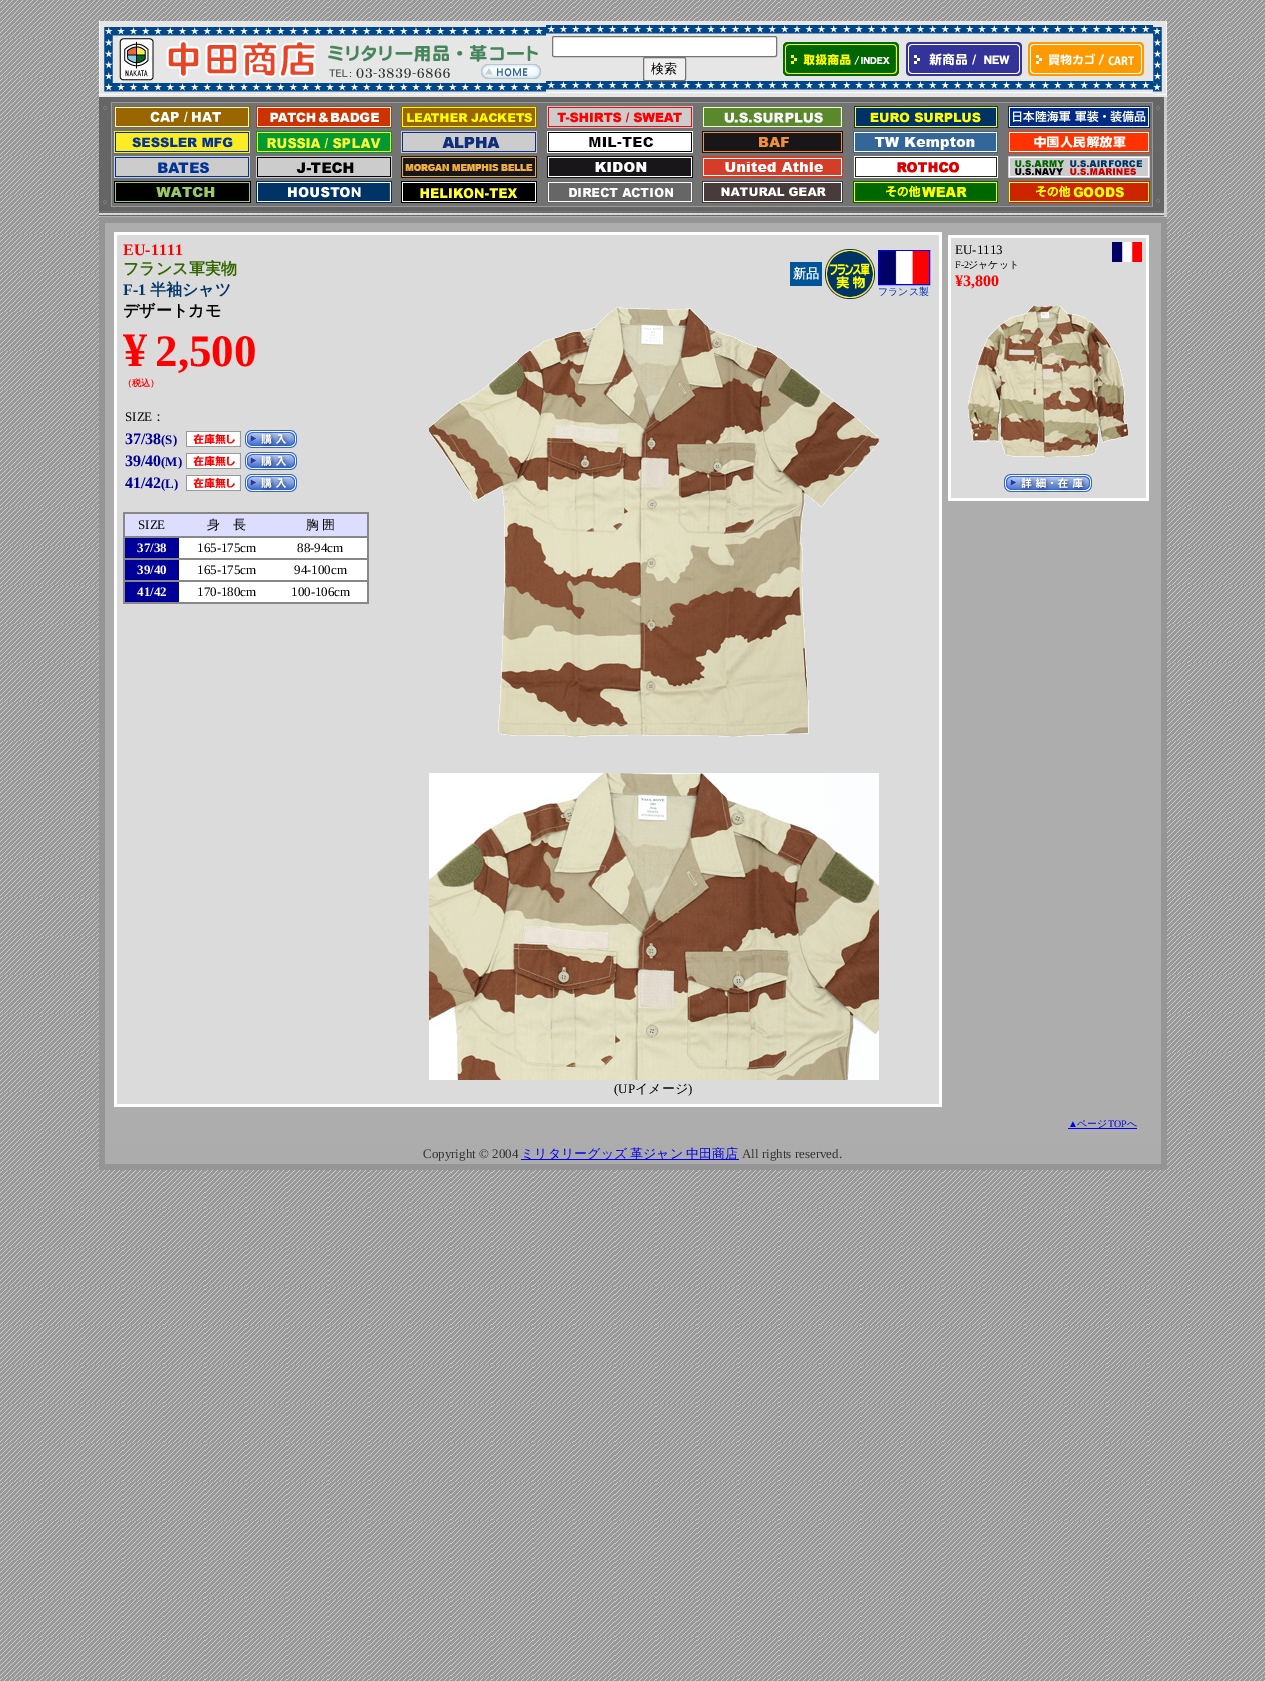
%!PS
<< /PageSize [1265 1681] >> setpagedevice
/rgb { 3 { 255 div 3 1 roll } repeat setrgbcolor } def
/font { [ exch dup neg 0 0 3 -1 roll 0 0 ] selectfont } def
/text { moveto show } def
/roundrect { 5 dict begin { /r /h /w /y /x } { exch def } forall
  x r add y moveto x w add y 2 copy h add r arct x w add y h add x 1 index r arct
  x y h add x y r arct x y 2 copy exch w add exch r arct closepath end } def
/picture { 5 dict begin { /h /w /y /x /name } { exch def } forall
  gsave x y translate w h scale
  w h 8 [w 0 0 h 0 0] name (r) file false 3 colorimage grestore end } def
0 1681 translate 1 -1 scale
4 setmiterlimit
255 255 255 rgb
0 0 1265 1681 rectfill
(img_01.rgb) 0 0 1265 1681 picture
204 204 204 rgb
1164 97 3 120 rectfill
(img_02.rgb) 99 21 1068 76 picture
(img_03.rgb) 99 23 447 72 picture
255 255 255 rgb
552.5 36.5 224 20 1.5 roundrect gsave fill grestore
118 118 118 rgb
stroke
239 239 239 rgb
643.5 57.5 42 23 1.5 roundrect gsave fill grestore
118 118 118 rgb
stroke
(img_04.rgb) 783 42 116 34 picture
(img_05.rgb) 906 42 116 34 picture
(img_06.rgb) 1028 42 116 34 picture
(img_07.rgb) 1153 25 14 70 picture
(img_08.rgb) 99 97 1065 120 picture
149 149 149 rgb
99 217 1068 953 rectfill
173 173 173 rgb
105 223 1056 921 rectfill
255 255 255 rgb
114 232 828 875 rectfill
219 219 219 rgb
117 235 822 869 rectfill
(img_09.rgb) 186 431 55 16 picture
(img_10.rgb) 245 430 52 18 picture
(img_09.rgb) 186 453 55 16 picture
(img_10.rgb) 245 452 52 18 picture
(img_09.rgb) 186 475 55 16 picture
(img_10.rgb) 245 474 52 18 picture
136 136 136 rgb
123 512 246 92 rectfill
221 221 255 rgb
125 514 242 22 rectfill
255 255 255 rgb
179 538 188 20 rectfill
0 0 153 rgb
125 538 54 20 rectfill
255 255 255 rgb
179 560 188 20 rectfill
0 0 153 rgb
125 560 54 20 rectfill
255 255 255 rgb
179 582 188 20 rectfill
0 0 153 rgb
125 582 54 20 rectfill
0 85 153 rgb
790 262 32 24 rectfill
(img_11.rgb) 825 249 50 50 picture
0 0 238 rgb
878.5 250.5 51 34 rectstroke
(img_12.rgb) 879 251 50 33 picture
(img_13.rgb) 429 307 450 430 picture
(img_14.rgb) 429 773 450 307 picture
255 255 255 rgb
948 235 201 266 rectfill
219 219 219 rgb
951 238 195 260 rectfill
(img_15.rgb) 1112 242 30 20 picture
(img_16.rgb) 968 306 160 151 picture
(img_17.rgb) 1004 474 88 18 picture
0 0 238 rgb
1068 1128 69 1 rectfill
172 172 172 rgb
105 1144 1056 20 rectfill
0 0 238 rgb
521 1159 218 1 rectfill
/WenQuanYiZenHei-Medium 13 font
0 0 0 rgb
(検索) 651 73 text
/LiberationSerif-Bold 16 font
255 0 0 rgb
(EU-1111) 123 255 text
/WenQuanYiZenHei-Bold 16 font
51 102 0 rgb
(フランス軍実物) 123 274 text
/LiberationSerif-Bold 16 font
0 51 102 rgb
(F-1) 123 295 text
/WenQuanYiZenHei-Bold 16 font
(半袖シャツ) 150 295 text
0 0 0 rgb
(デザートカモ) 123 316 text
/LiberationSerif-Bold 48 font
255 0 0 rgb
(¥) 123 366 text
/LiberationSerif-Bold 45 font
(2,500) 155 366 text
/WenQuanYiZenHei-Bold 9 font
(（税込）) 123 386 text
/LiberationSerif-Regular 13 font
0 0 0 rgb
(SIZE) 125 421 text
/WenQuanYiZenHei-Medium 13 font
(：) 152 421 text
/LiberationSerif-Bold 16 font
0 0 153 rgb
(37/38) 125 444 text
/LiberationSerif-Bold 13 font
(\(S\)) 161 444 text
/LiberationSerif-Bold 16 font
(39/40) 125 466 text
/LiberationSerif-Bold 13 font
(\(M\)) 161 466 text
/LiberationSerif-Bold 16 font
(41/42) 125 488 text
/LiberationSerif-Bold 13 font
(\(L\)) 161 488 text
/LiberationSerif-Regular 13 font
0 0 0 rgb
(SIZE) 138 529 text
/WenQuanYiZenHei-Medium 13 font
(身　長) 207 529 text
306 529 moveto -1 0 32 (胸 囲) widthshow
/LiberationSerif-Bold 13 font
255 255 255 rgb
(37/38) 137 552 text
/LiberationSerif-Regular 13 font
0 0 0 rgb
(165-175cm) 197 552 text
(88-94cm) 297 552 text
/LiberationSerif-Bold 13 font
255 255 255 rgb
(39/40) 137 574 text
/LiberationSerif-Regular 13 font
0 0 0 rgb
(165-175cm) 197 574 text
(94-100cm) 294 574 text
/LiberationSerif-Bold 13 font
255 255 255 rgb
(41/42) 137 596 text
/LiberationSerif-Regular 13 font
0 0 0 rgb
(170-180cm) 197 596 text
(100-106cm) 291 596 text
/WenQuanYiZenHei-Bold 13 font
255 255 255 rgb
(新品) 793 278 text
/WenQuanYiZenHei-Medium 10 font
0 51 187 rgb
(フランス製) 878 295 text
/LiberationSerif-Regular 13 font
0 0 0 rgb
(\(UP) 614 1093 text
/WenQuanYiZenHei-Medium 13 font
(イメージ) 635 1093 text
/LiberationSerif-Regular 13 font
(\)) 688 1093 text
(EU-1113) 955 254 text
/LiberationSerif-Regular 10 font
(F-2) 955 268 text
/WenQuanYiZenHei-Medium 10 font
(ジャケット) 968 268 text
/LiberationSerif-Bold 16 font
255 0 0 rgb
(¥3,800) 955 286 text
/LiberationSerif-Regular 10 font
0 0 238 rgb
(▲) 1068 1127 text
/WenQuanYiZenHei-Medium 10 font
(ページ) 1077 1127 text
/LiberationSerif-Regular 10 font
(TOP) 1108 1127 text
/WenQuanYiZenHei-Medium 10 font
(へ) 1127 1127 text
/LiberationSerif-Regular 13 font
51 51 51 rgb
(Copyright © 2004) 423 1158 text
/WenQuanYiZenHei-Medium 13 font
0 0 238 rgb
521 1158 moveto -1 0 32 (ミリタリーグッズ 革ジャン 中田商店) widthshow
/LiberationSerif-Regular 13 font
51 51 51 rgb
(All rights reserved.) 742 1158 text
showpage
